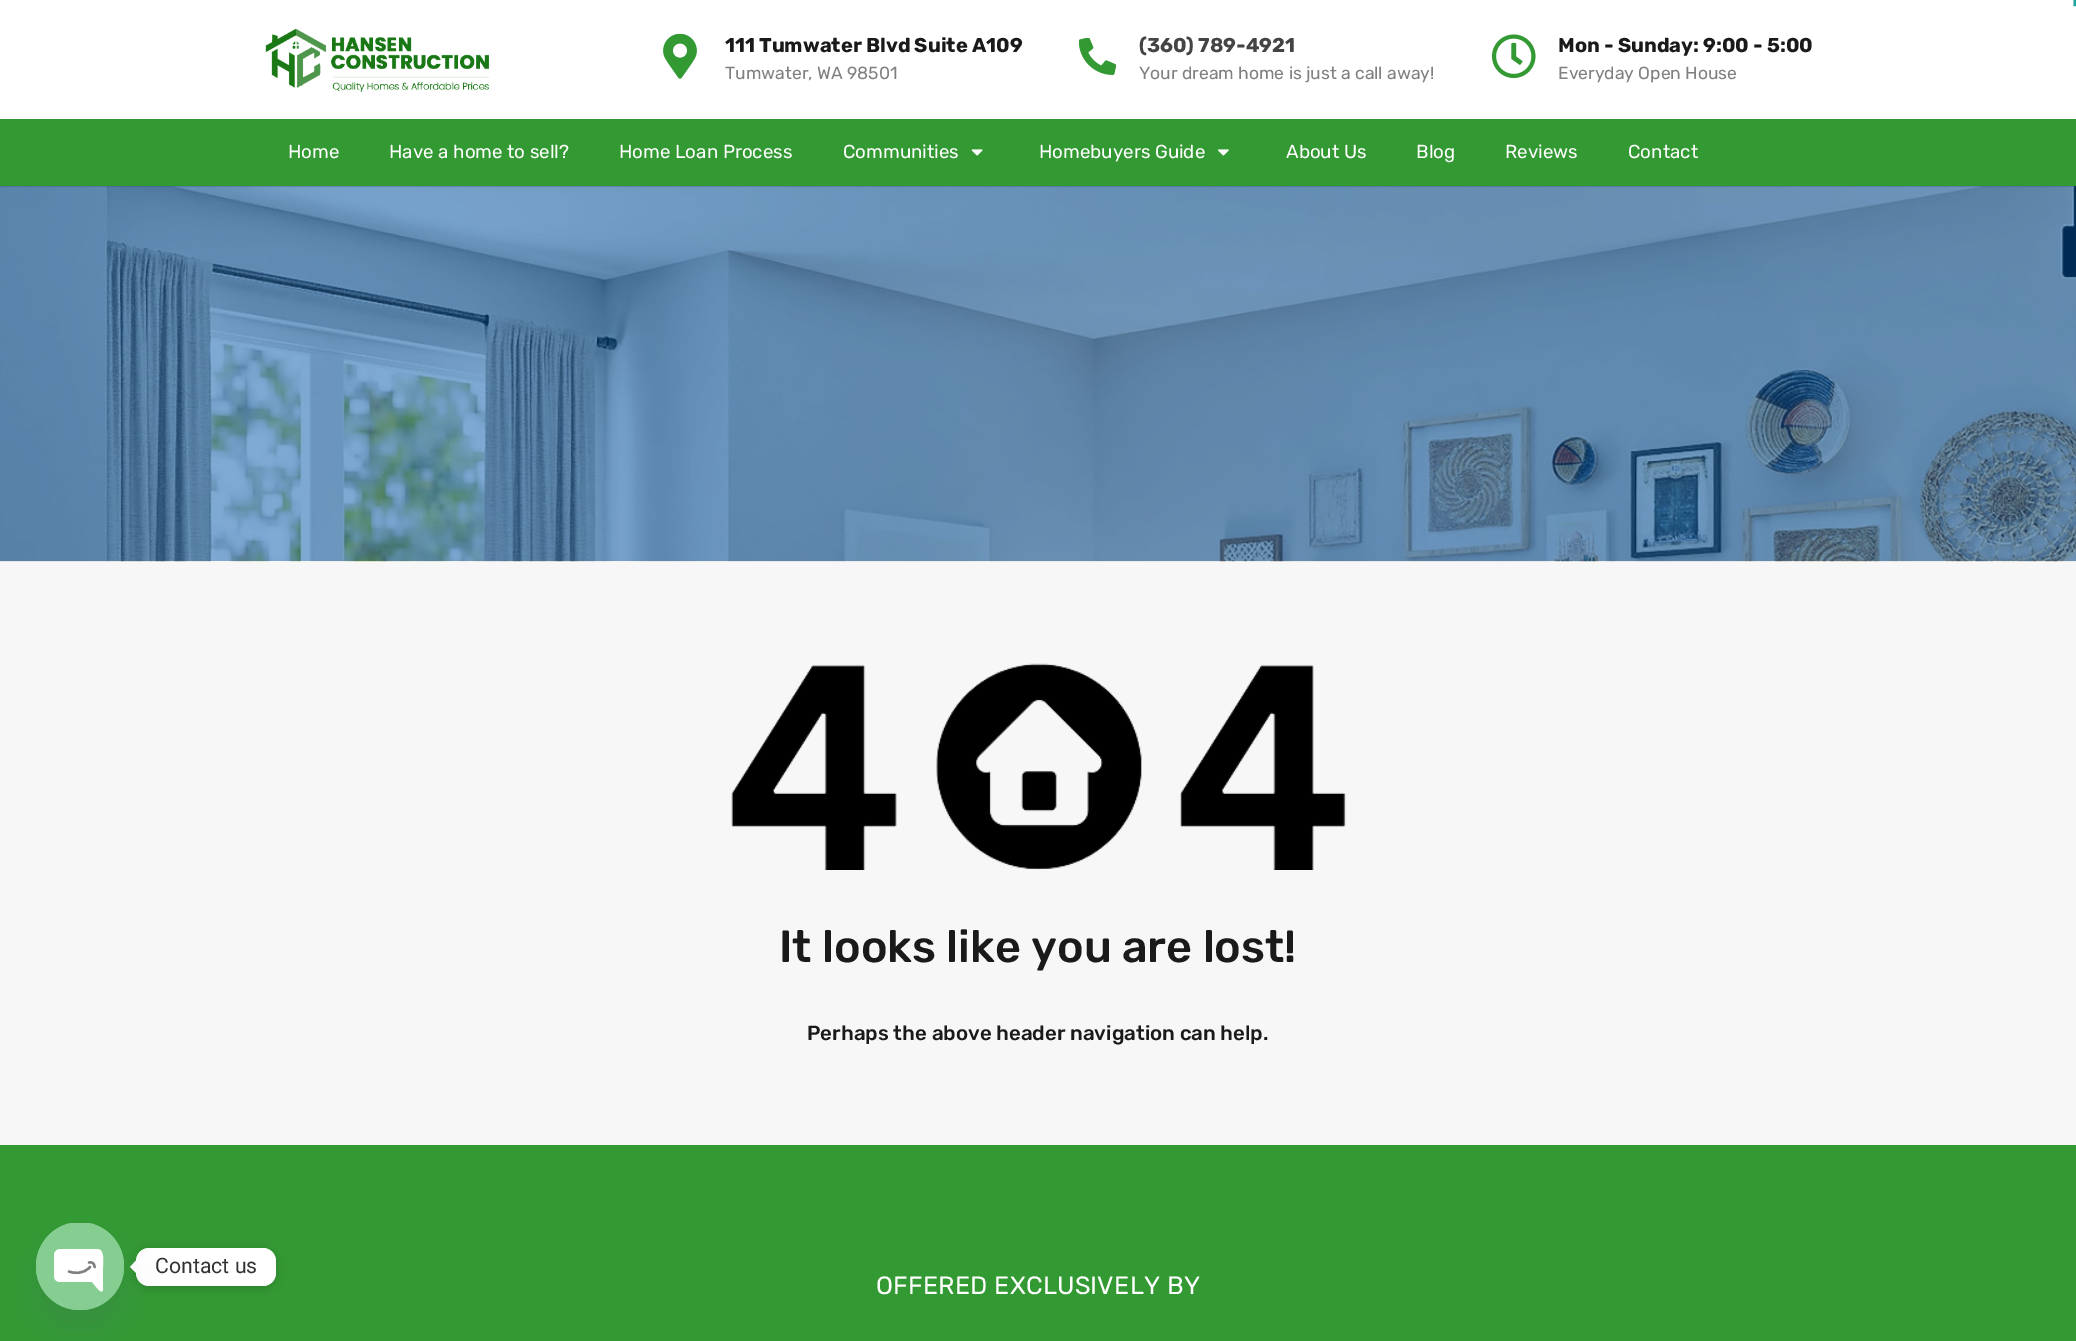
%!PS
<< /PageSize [2076 1341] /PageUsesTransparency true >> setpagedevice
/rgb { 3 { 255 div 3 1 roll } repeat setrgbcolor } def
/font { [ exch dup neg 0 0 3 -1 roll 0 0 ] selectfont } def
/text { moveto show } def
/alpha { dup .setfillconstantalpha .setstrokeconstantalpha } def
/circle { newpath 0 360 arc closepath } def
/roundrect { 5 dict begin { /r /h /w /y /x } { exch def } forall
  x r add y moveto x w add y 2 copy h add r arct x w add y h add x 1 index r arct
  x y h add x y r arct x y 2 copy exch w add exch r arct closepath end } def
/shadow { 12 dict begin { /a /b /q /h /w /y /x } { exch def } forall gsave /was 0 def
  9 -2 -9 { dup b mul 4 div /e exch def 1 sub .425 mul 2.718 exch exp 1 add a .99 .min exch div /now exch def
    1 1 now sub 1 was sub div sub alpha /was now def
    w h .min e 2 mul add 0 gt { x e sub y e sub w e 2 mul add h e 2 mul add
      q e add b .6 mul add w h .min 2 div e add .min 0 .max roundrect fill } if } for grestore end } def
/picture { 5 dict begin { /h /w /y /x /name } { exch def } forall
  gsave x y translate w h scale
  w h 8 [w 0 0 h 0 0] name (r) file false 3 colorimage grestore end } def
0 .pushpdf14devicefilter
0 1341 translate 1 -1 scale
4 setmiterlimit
247 247 247 rgb
0 0 2076 1341 rectfill
51 153 51 rgb
0 1145 2076 196 rectfill
0 0 0 rgb
136 1249 140 39 13 5 0.15 shadow
255 255 255 rgb
136 1248 140 38 13 roundrect fill
136 1260.5 moveto 0 12.5 rlineto -6 -6 rlineto closepath fill
73 104 126 rgb
36 1243 88 87 43.5 15 0.16 shadow
134 205 145 rgb
36 1223 88 87 43.5 roundrect fill
gsave
36 1223 88 87 rectclip
80 1266 44 circle fill
grestore
255 255 255 rgb
97 1249 moveto -37 0 rlineto -3 0 -6 3 -6 6 rcurveto 0 21 rlineto 0 4 3 6 6 6 rcurveto 32 0 rlineto 5 6 rlineto 1 1 5 6 6 2 rcurveto 0 -23 rlineto 0 -5 2 -18 -6 -18 rcurveto closepath fill
128 128 128 rgb
2.4 setlinewidth
1 setlinecap
1 setlinejoin
69 1271.5 moveto 4 1.5 14 3.5 21 -4.5 rcurveto 94.5 1267 moveto 0 -2 -1 -5.5 -5.5 -4.5 rcurveto stroke
255 255 255 rgb
0 0 2076 119 rectfill
30 166 154 rgb
6.2 setlinewidth
0 setlinecap
0 setlinejoin
2073.5 3 moveto 2.5 0 rlineto stroke
(img_01.rgb) 265 28 224 64 picture
(img_02.rgb) 663 34 34 45 picture
(img_03.rgb) 1079 38 37 37 picture
(img_04.rgb) 1491 34 45 45 picture
51 153 51 rgb
0 119 2076 67 rectfill
(img_05.rgb) 971 149 12 7 picture
(img_06.rgb) 1217 149 12 7 picture
(img_07.rgb) 0 186 2076 376 picture
(img_08.rgb) 731 663 615 207 picture
/Roboto-Regular 21.25 font
51 51 51 rgb
(Contact us) 155 1273 text
/Rubik-Bold 20 font
26 26 26 rgb
(111 Tumwater Blvd Suite A109) 725 52 text
/Rubik-Regular 17.5 font
128 128 128 rgb
(Tumwater, WA 98501) 725 79 text
/Rubik-Bold 20 font
68 68 68 rgb
(\(360\) 789-4921) 1139 52 text
/Rubik-Regular 17.5 font
128 128 128 rgb
(Your dream home is just a call away!) 1139 79 text
/Rubik-Bold 20 font
26 26 26 rgb
(Mon - Sunday: 9:00 - 5:00) 1558 52 text
/Rubik-Regular 17.5 font
128 128 128 rgb
(Everyday Open House) 1558 79 text
/Rubik-Regular 18.75 font
255 255 255 rgb
(Home) 288 158 text
(Have a home to sell?) 389 158 text
(Home Loan Process) 619 158 text
(Communities) 843 158 text
(Homebuyers Guide) 1039 158 text
(About Us) 1286 158 text
(Blog) 1416 158 text
(Reviews) 1505 158 text
(Contact) 1628 158 text
/Rubik-Medium 45 font
26 26 26 rgb
(It looks like you are lost!) 779 962 text
/Rubik-Medium 20.45 font
(Perhaps the above header navigation can help.) 807 1040 text
/Rubik-Regular 25 font
255 255 255 rgb
876 1294 moveto 0.25 0 (OFFERED EXCLUSIVELY BY) ashow
.poppdf14devicefilter showpage
